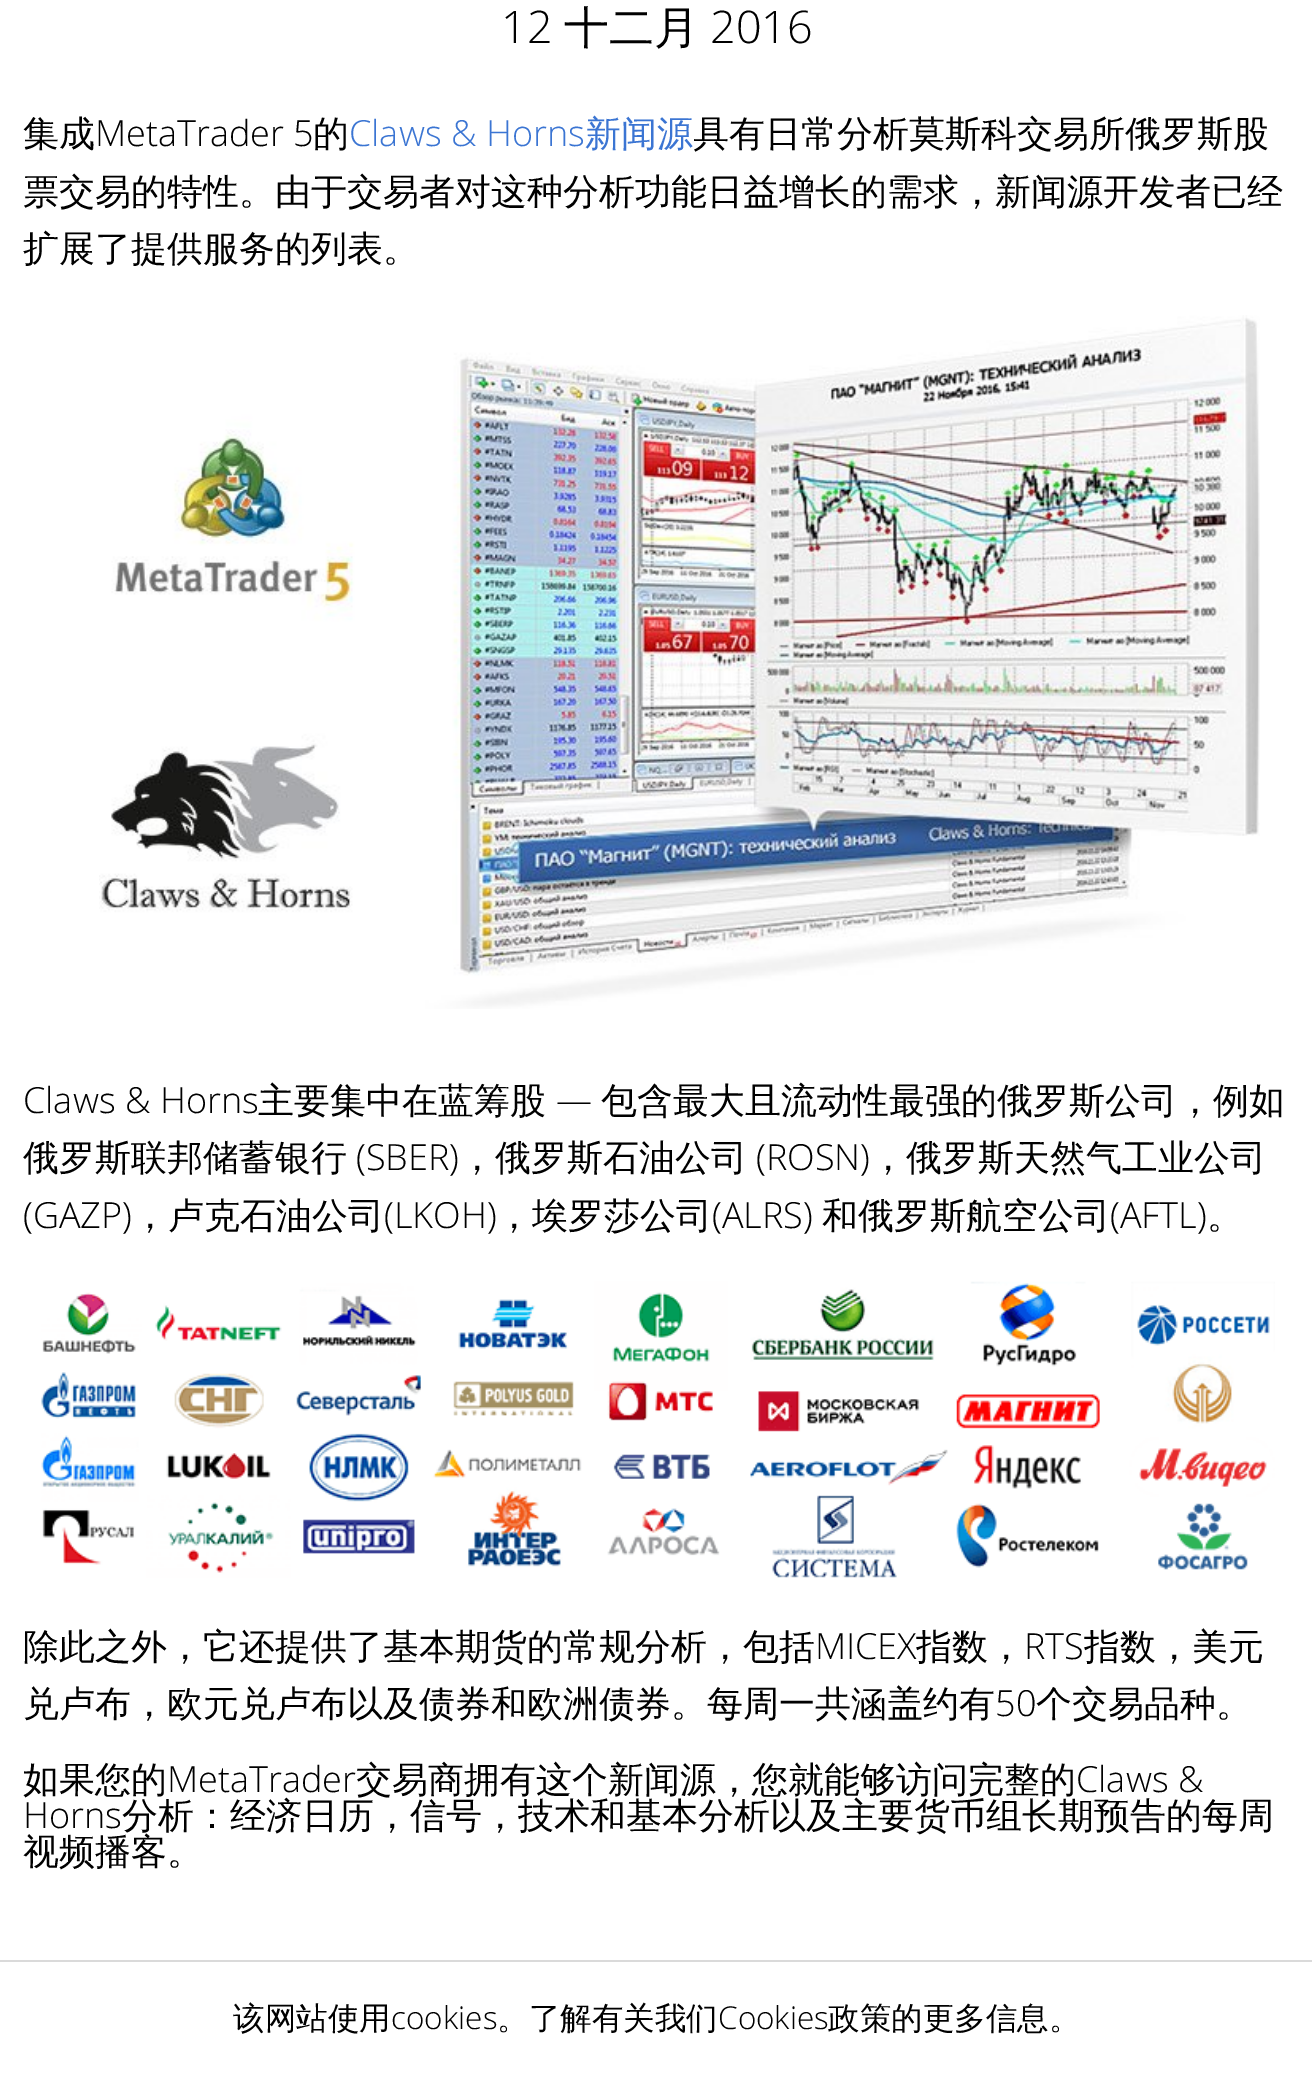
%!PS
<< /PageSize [1312 2074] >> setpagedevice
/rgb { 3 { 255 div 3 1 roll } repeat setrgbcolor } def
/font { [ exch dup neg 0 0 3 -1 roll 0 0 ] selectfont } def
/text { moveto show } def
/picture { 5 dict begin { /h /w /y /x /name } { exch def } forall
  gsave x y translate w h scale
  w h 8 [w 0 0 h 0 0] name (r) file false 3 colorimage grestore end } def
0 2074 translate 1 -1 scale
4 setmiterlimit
255 255 255 rgb
0 0 1312 2074 rectfill
(img_01.rgb) 99 315 1161 694 picture
(img_02.rgb) 41 1281 1234 297 picture
218 218 218 rgb
0 1960 1312 2 rectfill
/OpenSans-Light 45 font
0 0 0 rgb
(12) 501 43 text
/WenQuanYiZenHei-Medium 45 font
(十二月) 564 43 text
/OpenSans-Light 45 font
(2016) 710 43 text
/WenQuanYiZenHei-Medium 36 font
(集成) 23 146 text
/OpenSans-Light 36 font
(MetaTrader 5) 95 146 text
/WenQuanYiZenHei-Medium 36 font
(的) 313 146 text
/OpenSans-Light 36 font
59 117 211 rgb
(Claws & Horns) 349 146 text
/WenQuanYiZenHei-Medium 36 font
(新闻源) 585 146 text
0 0 0 rgb
(具有日常分析莫斯科交易所俄罗斯股) 693 146 text
(票交易的特性。由于交易者对这种分析功能日益增长的需求，新闻源开发者已经) 23 204 text
(扩展了提供服务的列表。) 23 261 text
/OpenSans-Light 36 font
(Claws & Horns) 23 1113 text
/WenQuanYiZenHei-Medium 36 font
(主要集中在蓝筹股) 258 1113 text
/OpenSans-Light 36 font
(—) 556 1113 text
/WenQuanYiZenHei-Medium 36 font
(包含最大且流动性最强的俄罗斯公司，例如) 601 1113 text
(俄罗斯联邦储蓄银行) 23 1170 text
/OpenSans-Light 36 font
(\(SBER\)) 356 1170 text
/WenQuanYiZenHei-Medium 36 font
(，俄罗斯石油公司) 459 1170 text
/OpenSans-Light 36 font
(\(ROSN\)) 756 1170 text
/WenQuanYiZenHei-Medium 36 font
(，俄罗斯天然气工业公司) 870 1170 text
/OpenSans-Light 36 font
(\(GAZP\)) 23 1228 text
/WenQuanYiZenHei-Medium 36 font
(，卢克石油公司) 132 1228 text
/OpenSans-Light 36 font
(\(LKOH\)) 384 1228 text
/WenQuanYiZenHei-Medium 36 font
(，埃罗莎公司) 496 1228 text
/OpenSans-Light 36 font
(\(ALRS\)) 712 1228 text
/WenQuanYiZenHei-Medium 36 font
(和俄罗斯航空公司) 822 1228 text
/OpenSans-Light 36 font
(\(AFTL\)) 1110 1228 text
/WenQuanYiZenHei-Medium 36 font
(。) 1207 1228 text
(除此之外，它还提供了基本期货的常规分析，包括) 23 1659 text
/OpenSans-Light 36 font
(MICEX) 815 1659 text
/WenQuanYiZenHei-Medium 36 font
(指数，) 916 1659 text
/OpenSans-Light 36 font
(RTS) 1024 1659 text
/WenQuanYiZenHei-Medium 36 font
(指数，美元) 1084 1659 text
(兑卢布，欧元兑卢布以及债券和欧洲债券。每周一共涵盖约有) 23 1716 text
/OpenSans-Light 36 font
(50) 995 1716 text
/WenQuanYiZenHei-Medium 36 font
(个交易品种。) 1036 1716 text
(如果您的) 23 1792 text
/OpenSans-Light 36 font
(MetaTrader) 167 1792 text
/WenQuanYiZenHei-Medium 36 font
(交易商拥有这个新闻源，您就能够访问完整的) 356 1792 text
/OpenSans-Light 36 font
(Claws &) 1076 1792 text
(Horns) 23 1828 text
/WenQuanYiZenHei-Medium 36 font
(分析：经济日历，信号，技术和基本分析以及主要货币组长期预告的每周) 122 1828 text
(视频播客。) 23 1864 text
/WenQuanYiZenHei-Medium 31.5 font
(该网站使用) 233 2029 text
/OpenSans-Light 31.5 font
(cookies) 391 2029 text
/WenQuanYiZenHei-Medium 31.5 font
(。了解有关我们) 497 2029 text
/OpenSans-Light 31.5 font
(Cookies) 718 2029 text
/WenQuanYiZenHei-Medium 31.5 font
(政策的更多信息。) 828 2029 text
showpage
